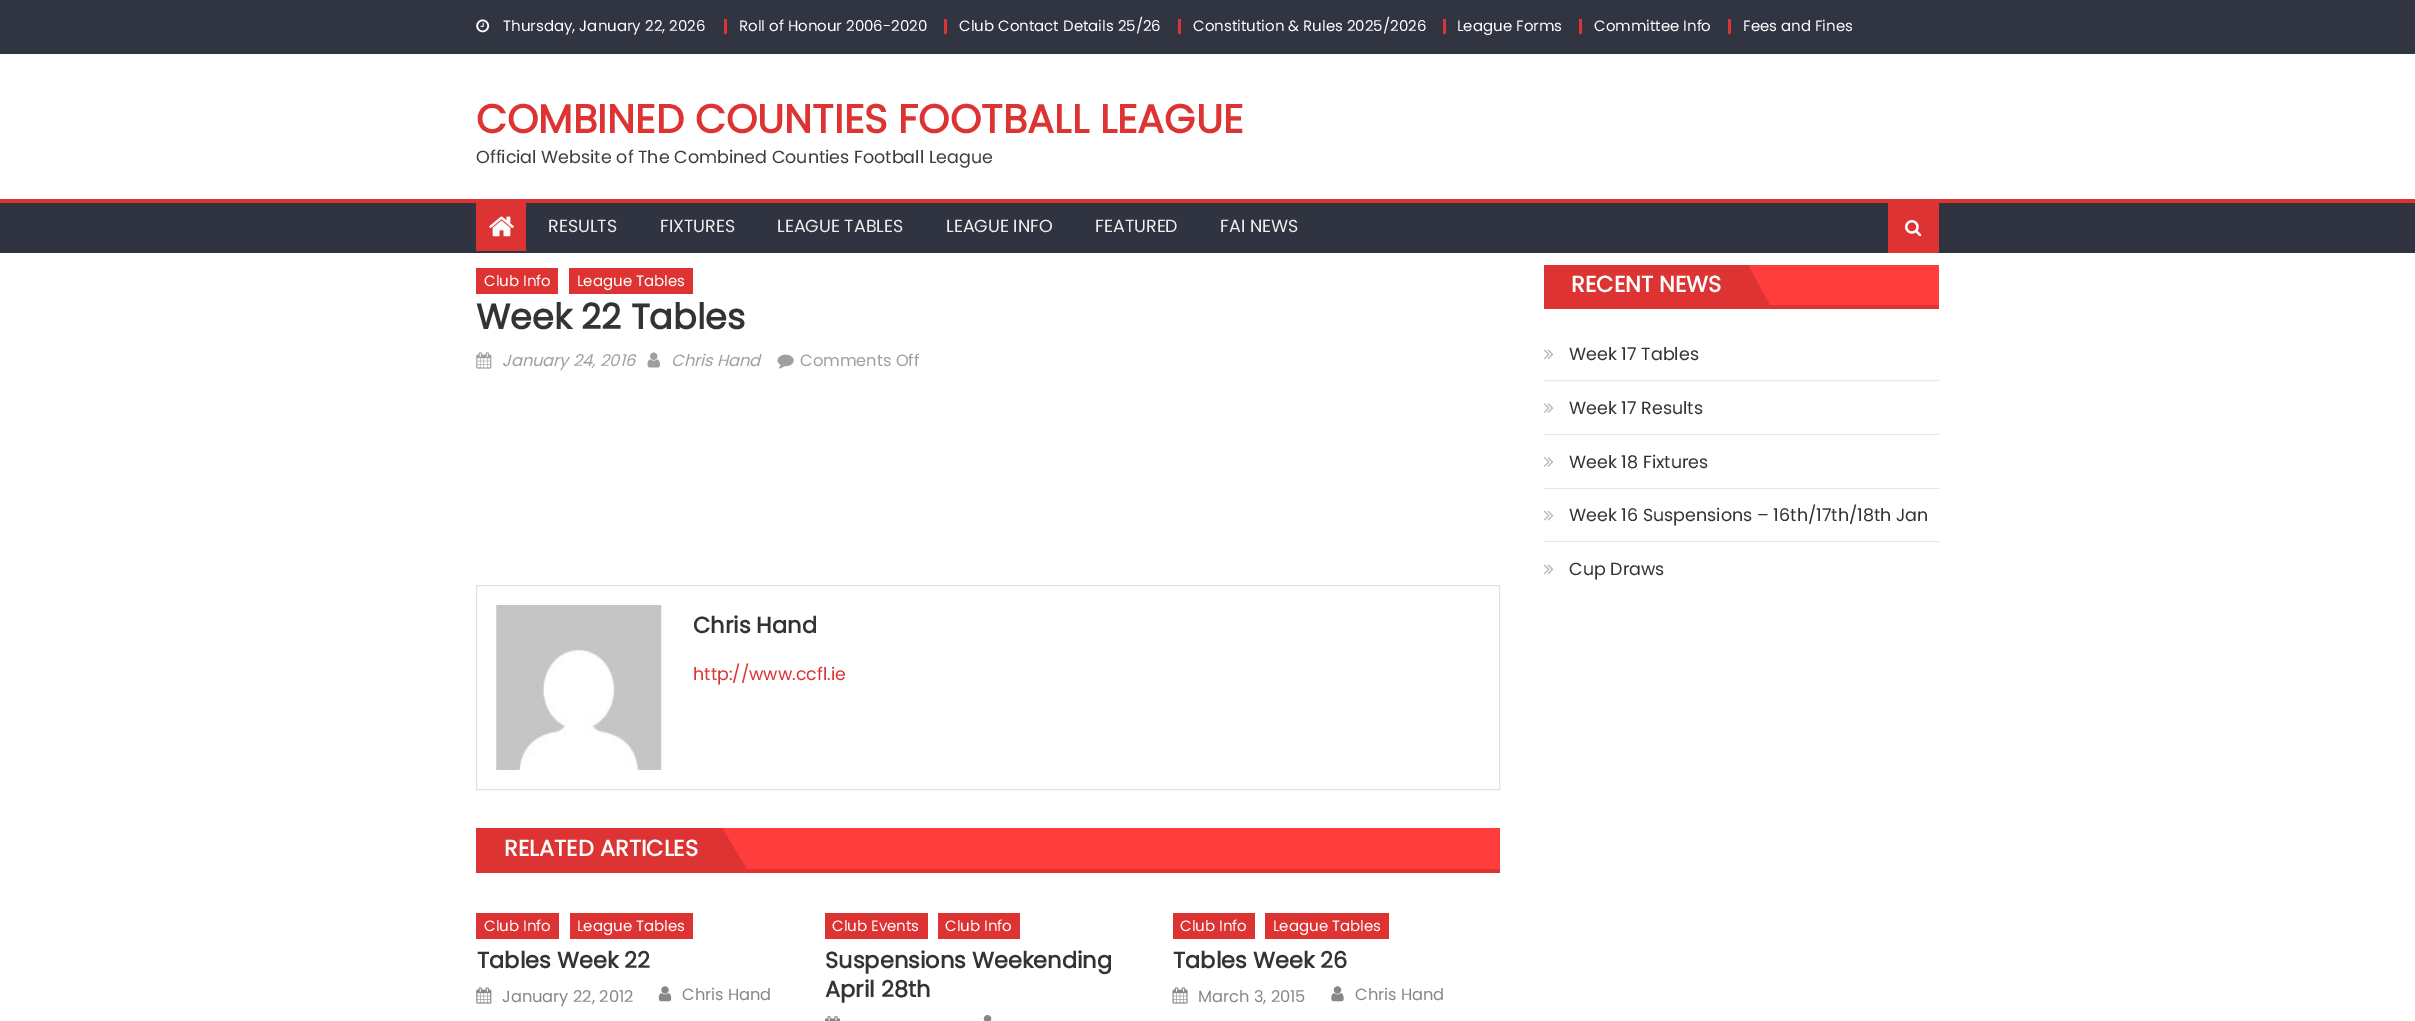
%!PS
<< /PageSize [2415 1021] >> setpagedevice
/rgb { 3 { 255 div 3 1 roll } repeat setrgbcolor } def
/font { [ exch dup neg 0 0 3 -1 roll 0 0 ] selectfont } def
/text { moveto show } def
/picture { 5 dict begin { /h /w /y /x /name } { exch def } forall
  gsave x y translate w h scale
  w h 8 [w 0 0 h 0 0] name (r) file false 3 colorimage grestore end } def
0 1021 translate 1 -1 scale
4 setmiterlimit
255 255 255 rgb
0 0 2415 1021 rectfill
49 53 65 rgb
0 0 2415 54 rectfill
(img_01.rgb) 476 19 14 14 picture
221 51 51 rgb
724 19 3 15 rectfill
944 19 3 15 rectfill
1178 19 3 15 rectfill
1443 19 3 15 rectfill
1579 19 3 15 rectfill
1728 19 3 15 rectfill
48 52 64 rgb
0 203 2415 50 rectfill
221 51 51 rgb
0 199 2415 4 rectfill
476 203 50 48 rectfill
(img_02.rgb) 489 216 25 21 picture
1888 203 51 50 rectfill
(img_03.rgb) 1905 220 17 17 picture
476 268 82 26 rectfill
569 268 124 26 rectfill
(img_04.rgb) 476 352 16 17 picture
(img_05.rgb) 647 352 13 16 picture
(img_06.rgb) 777 354 17 15 picture
225 225 225 rgb
476.5 585.5 1023 204 rectstroke
(img_07.rgb) 496 605 166 165 picture
255 61 61 rgb
723 828 777 41 rectfill
221 51 51 rgb
476 869 1024 4 rectfill
476 828 3 45 rectfill
479 828 244 41 rectfill
748 871 moveto -26 0 rlineto 0 -43 rlineto closepath fill
476 913 83 26 rectfill
570 913 123 26 rectfill
(img_08.rgb) 476 987 16 17 picture
(img_09.rgb) 658 986 14 16 picture
825 913 103 26 rectfill
938 913 82 26 rectfill
(img_10.rgb) 825 1016 16 5 picture
(img_11.rgb) 983 1015 9 6 picture
1173 913 82 26 rectfill
1265 913 124 26 rectfill
(img_12.rgb) 1172 987 16 17 picture
(img_13.rgb) 1331 986 13 16 picture
255 61 61 rgb
1748 265 191 40 rectfill
221 51 51 rgb
1544 305 395 4 rectfill
1544 265 3 44 rectfill
1547 265 201 40 rectfill
1772 309 moveto -24 0 rlineto 0 -44 rlineto closepath fill
230 230 230 rgb
1544 380 395 1 rectfill
(img_14.rgb) 1544 349 10 11 picture
1544 434 395 1 rectfill
(img_15.rgb) 1544 403 10 10 picture
1544 488 395 1 rectfill
(img_16.rgb) 1544 457 10 10 picture
1544 541 395 1 rectfill
(img_17.rgb) 1544 510 10 11 picture
(img_14.rgb) 1544 564 10 11 picture
/Poppins-Regular 15 font
255 255 255 rgb
(Thursday, January 22, 2026) 503 31 text
(Roll of Honour 2006-2020) 739 31 text
(Club Contact Details 25/26) 959 31 text
(Constitution & Rules 2025/2026) 1193 31 text
(League Forms) 1457 31 text
(Committee Info) 1594 31 text
(Fees and Fines) 1743 31 text
/Poppins-Bold 40 font
221 51 51 rgb
(COMBINED COUNTIES FOOTBALL LEAGUE) 476 133 text
/Poppins-Regular 17.5 font
61 61 61 rgb
(Official Website of The Combined Counties Football League) 476 163 text
238 238 238 rgb
(RESULTS) 548 232 text
(FIXTURES) 660 232 text
(LEAGUE TABLES) 777 232 text
(LEAGUE INFO) 946 232 text
(FEATURED) 1095 232 text
(FAI NEWS) 1220 232 text
/Poppins-Regular 15 font
255 255 255 rgb
(Club Info) 484 286 text
(League Tables) 577 286 text
/Poppins-Bold 35 font
51 51 51 rgb
(Week 22 Tables) 476 329 text
/Poppins-Italic 16.25 font
159 159 159 rgb
(January 24, 2016) 502 366 text
(Chris Hand) 671 366 text
/Poppins-Regular 16.25 font
(Comments Off) 800 366 text
/Poppins-Bold 22.5 font
51 51 51 rgb
(Chris Hand) 693 633 text
/Poppins-Regular 17.5 font
221 51 51 rgb
(http://www.ccfl.ie) 693 680 text
/Poppins-Bold 22.5 font
255 255 255 rgb
(RELATED ARTICLES) 504 856 text
/Poppins-Regular 15 font
(Club Info) 484 931 text
(League Tables) 577 931 text
/Poppins-Bold 22.5 font
51 51 51 rgb
(Tables Week 22) 477 968 text
/Poppins-Regular 16.25 font
135 135 135 rgb
(January 22, 2012) 502 1002 text
(Chris Hand) 682 1000 text
/Poppins-Regular 15 font
255 255 255 rgb
(Club Events) 832 931 text
(Club Info) 945 931 text
/Poppins-Bold 22.5 font
51 51 51 rgb
(Suspensions Weekending) 825 968 text
(April 28th) 825 997 text
/Poppins-Regular 15 font
255 255 255 rgb
(Club Info) 1180 931 text
(League Tables) 1273 931 text
/Poppins-Bold 22.5 font
51 51 51 rgb
(Tables Week 26) 1173 968 text
/Poppins-Regular 16.25 font
135 135 135 rgb
(March 3, 2015) 1198 1002 text
(Chris Hand) 1355 1000 text
/Poppins-Bold 22.5 font
255 255 255 rgb
(RECENT NEWS) 1571 292 text
/Poppins-Regular 17.5 font
51 51 51 rgb
(Week 17 Tables) 1569 360 text
(Week 17 Results) 1569 414 text
(Week 18 Fixtures) 1569 468 text
(Week 16 Suspensions – 16th/17th/18th Jan) 1569 521 text
(Cup Draws) 1569 575 text
showpage
